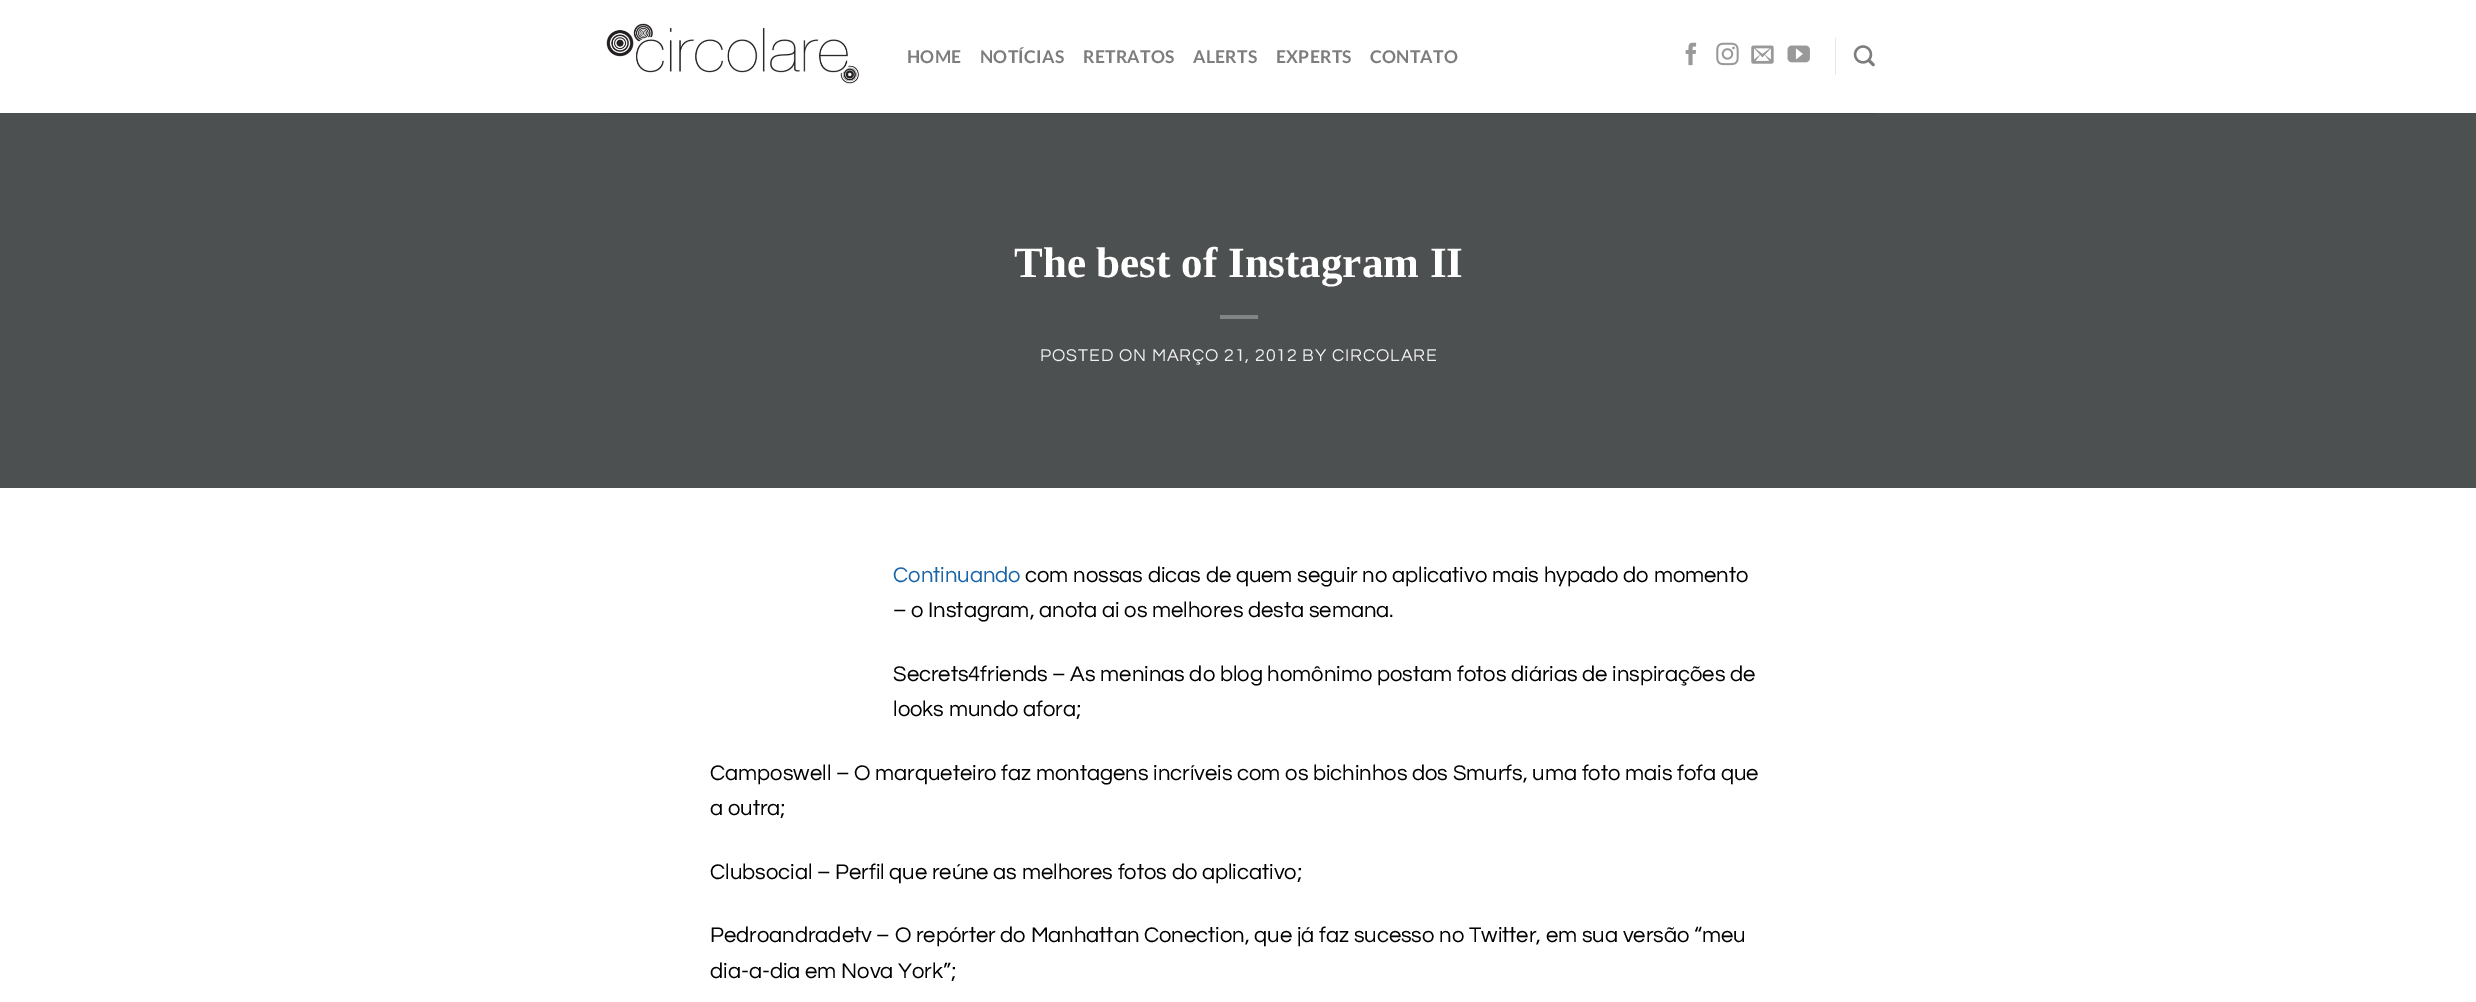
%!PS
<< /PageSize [2476 1002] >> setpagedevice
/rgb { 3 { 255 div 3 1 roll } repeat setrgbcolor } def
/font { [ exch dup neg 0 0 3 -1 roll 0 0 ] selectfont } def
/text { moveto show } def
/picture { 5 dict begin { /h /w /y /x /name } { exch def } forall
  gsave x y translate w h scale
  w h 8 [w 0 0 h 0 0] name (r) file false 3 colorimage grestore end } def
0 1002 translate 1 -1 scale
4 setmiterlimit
255 255 255 rgb
0 0 2476 1002 rectfill
(img_01.rgb) 606 23 253 61 picture
(img_02.rgb) 1685 42 12 24 picture
(img_03.rgb) 1716 42 23 24 picture
(img_04.rgb) 1751 45 23 19 picture
(img_05.rgb) 1787 45 23 18 picture
230 230 230 rgb
1835 38 1 37 rectfill
(img_06.rgb) 1853 45 22 22 picture
77 80 80 rgb
0 113 2476 375 rectfill
69 72 72 rgb
601 113 1275 1 rectfill
130 133 133 rgb
1220 315 38 4 rectfill
/Lato-Bold 17.5 font
125 125 125 rgb
907 63 moveto 0.25 0 (HOME) ashow
980 63 moveto 0.25 0 (NOTÍCIAS) ashow
1083 63 moveto 0.25 0 (RETRATOS) ashow
1193 63 moveto 0.25 0 (ALERTS) ashow
1276 63 moveto 0.25 0 (EXPERTS) ashow
1370 63 moveto 0.25 0 (CONTATO) ashow
/LiberationSerif-Bold 43 font
255 255 255 rgb
(The best of Instagram II) 1014 277 text
/Questrial-Regular 17.75 font
241 241 241 rgb
1040 361 moveto 0.9 0 (POSTED ON MARÇO 21, 2012 BY CIRCOLARE) ashow
/Questrial-Regular 22 font
26 101 167 rgb
(Continuando) 893 582 text
0 0 0 rgb
(com nossas dicas de quem seguir no aplicativo mais hypado do momento) 1025 582 text
(– o Instagram, anota ai os melhores desta semana.) 893 617 text
(Secrets4friends – As meninas do blog homônimo postam fotos diárias de inspirações de) 893 681 text
(looks mundo afora;) 893 716 text
(Camposwell – O marqueteiro faz montagens incríveis com os bichinhos dos Smurfs, uma foto mais fofa que) 710 780 text
(a outra;) 710 815 text
(Clubsocial – Perfil que reúne as melhores fotos do aplicativo;) 710 879 text
(Pedroandradetv – O repórter do Manhattan Conection, que já faz sucesso no Twitter, em sua versão “meu) 710 942 text
(dia-a-dia em Nova York”;) 710 978 text
showpage
